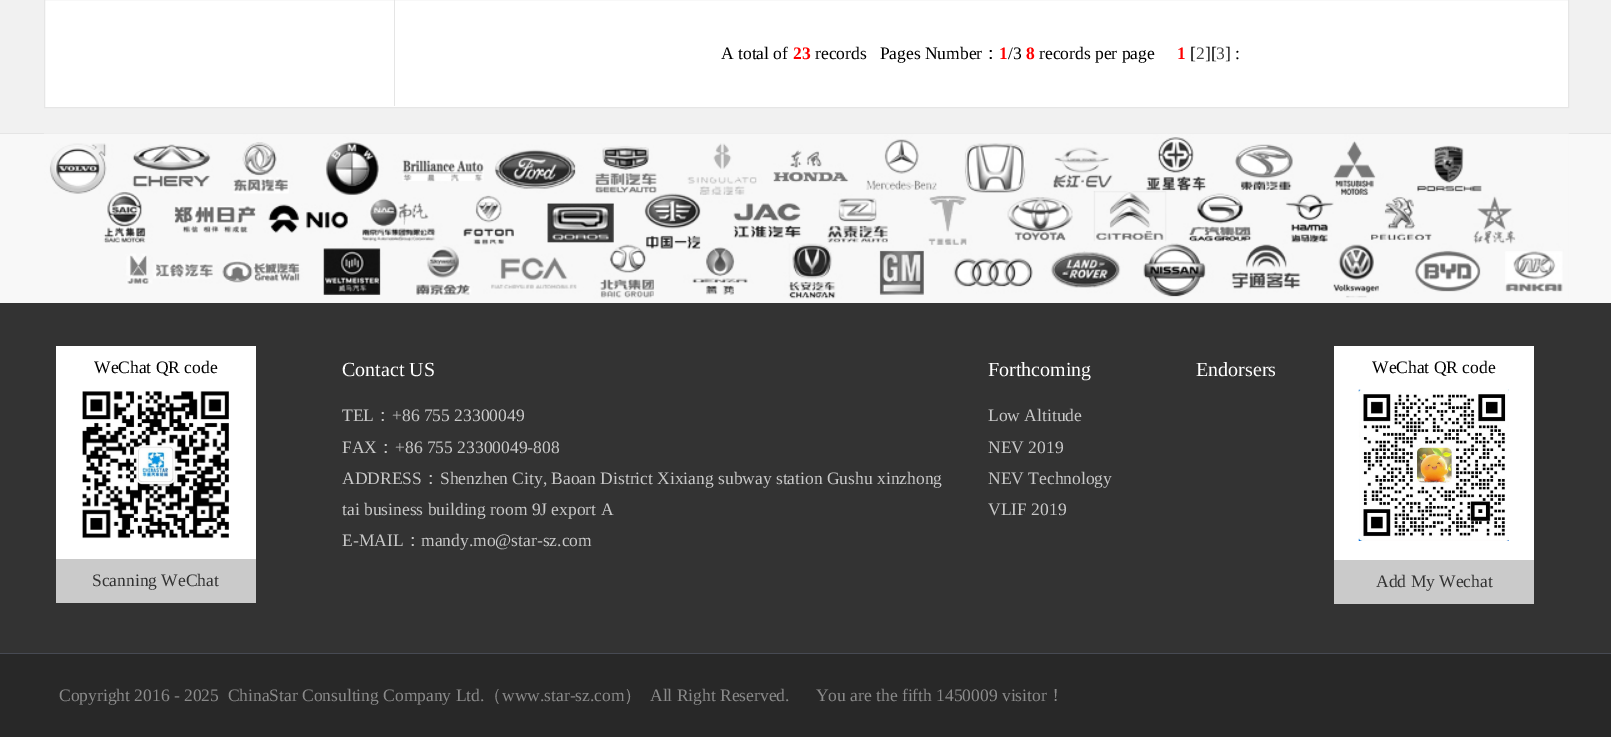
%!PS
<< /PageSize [1611 737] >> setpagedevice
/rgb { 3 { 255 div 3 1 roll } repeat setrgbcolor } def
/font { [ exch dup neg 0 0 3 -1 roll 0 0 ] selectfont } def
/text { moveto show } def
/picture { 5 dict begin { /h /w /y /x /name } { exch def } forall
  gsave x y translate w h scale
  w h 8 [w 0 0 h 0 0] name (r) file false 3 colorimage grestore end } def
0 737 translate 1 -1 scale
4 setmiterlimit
241 241 241 rgb
0 0 1611 737 rectfill
255 255 255 rgb
44.5 -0.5 moveto 1524 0 rlineto 0 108 rlineto -1524 0 rlineto closepath gsave fill grestore
230 230 230 rgb
stroke
229 229 229 rgb
394 0 1 106 rectfill
248 248 248 rgb
0 134 1611 169 rectfill
229 229 229 rgb
0 133 1611 1 rectfill
(img_01.rgb) 44 133 1525 166 picture
51 51 51 rgb
0 303 1611 350 rectfill
255 255 255 rgb
56 346 200 213 rectfill
(img_02.rgb) 82 391 147 148 picture
202 202 202 rgb
56 559 200 44 rectfill
255 255 255 rgb
1334 346 200 214 rectfill
(img_03.rgb) 1358 389 151 152 picture
202 202 202 rgb
1334 560 200 44 rectfill
40 40 40 rgb
0 654 1611 83 rectfill
71 74 83 rgb
0 653 1611 1 rectfill
/LiberationSerif-Regular 17.5 font
0 0 0 rgb
(A total of) 721 59 text
/LiberationSerif-Bold 17.5 font
255 0 0 rgb
(23) 793 59 text
/LiberationSerif-Regular 17.5 font
0 0 0 rgb
(records   Pages Number) 815 59 text
/WenQuanYiZenHei-Medium 17.5 font
(：) 982 59 text
/LiberationSerif-Bold 17.5 font
255 0 0 rgb
(1) 999 59 text
/LiberationSerif-Regular 17.5 font
0 0 0 rgb
(/3) 1008 59 text
/LiberationSerif-Bold 17.5 font
255 0 0 rgb
(8) 1026 59 text
/LiberationSerif-Regular 17.5 font
0 0 0 rgb
(records per page) 1039 59 text
/LiberationSerif-Bold 17.5 font
255 0 0 rgb
(1) 1177 59 text
/LiberationSerif-Regular 17.5 font
0 0 0 rgb
([) 1190 59 text
68 68 68 rgb
(2) 1196 59 text
0 0 0 rgb
(][) 1205 59 text
68 68 68 rgb
(3) 1216 59 text
0 0 0 rgb
(] :) 1225 59 text
(WeChat QR code) 94 373 text
51 51 51 rgb
(Scanning WeChat) 92 586 text
/LiberationSerif-Regular 20 font
255 255 255 rgb
(Contact US) 342 376 text
(Forthcoming) 988 376 text
(Endorsers) 1196 376 text
/LiberationSerif-Regular 17.5 font
200 200 200 rgb
(TEL) 342 421 text
/WenQuanYiZenHei-Medium 17.5 font
(：) 374 421 text
/LiberationSerif-Regular 17.5 font
(+86 755 23300049) 392 421 text
(FAX) 342 453 text
/WenQuanYiZenHei-Medium 17.5 font
(：) 377 453 text
/LiberationSerif-Regular 17.5 font
(+86 755 23300049-808) 395 453 text
(ADDRESS) 342 484 text
/WenQuanYiZenHei-Medium 17.5 font
(：) 422 484 text
/LiberationSerif-Regular 17.5 font
(Shenzhen City, Baoan District Xixiang subway station Gushu xinzhong) 440 484 text
(tai business building room 9J export A) 342 515 text
(E-MAIL) 342 546 text
/WenQuanYiZenHei-Medium 17.5 font
(：) 404 546 text
/LiberationSerif-Regular 17.5 font
(mandy.mo@star-sz.com) 421 546 text
(Low Altitude) 988 421 text
(NEV 2019) 988 453 text
(NEV Technology) 988 484 text
(VLIF 2019) 988 515 text
0 0 0 rgb
(WeChat QR code) 1372 373 text
51 51 51 rgb
(Add My Wechat) 1376 587 text
138 138 138 rgb
(Copyright 2016 - 2025  ChinaStar Consulting Company Ltd.) 59 701 text
/WenQuanYiZenHei-Medium 17.5 font
(（) 484 701 text
/LiberationSerif-Regular 17.5 font
(www.star-sz.com) 502 701 text
/WenQuanYiZenHei-Medium 17.5 font
(）) 624 701 text
/LiberationSerif-Regular 17.5 font
(All Right Reserved.      You are the fifth 1450009 visitor) 650 701 text
/WenQuanYiZenHei-Medium 17.5 font
(！) 1047 701 text
showpage
